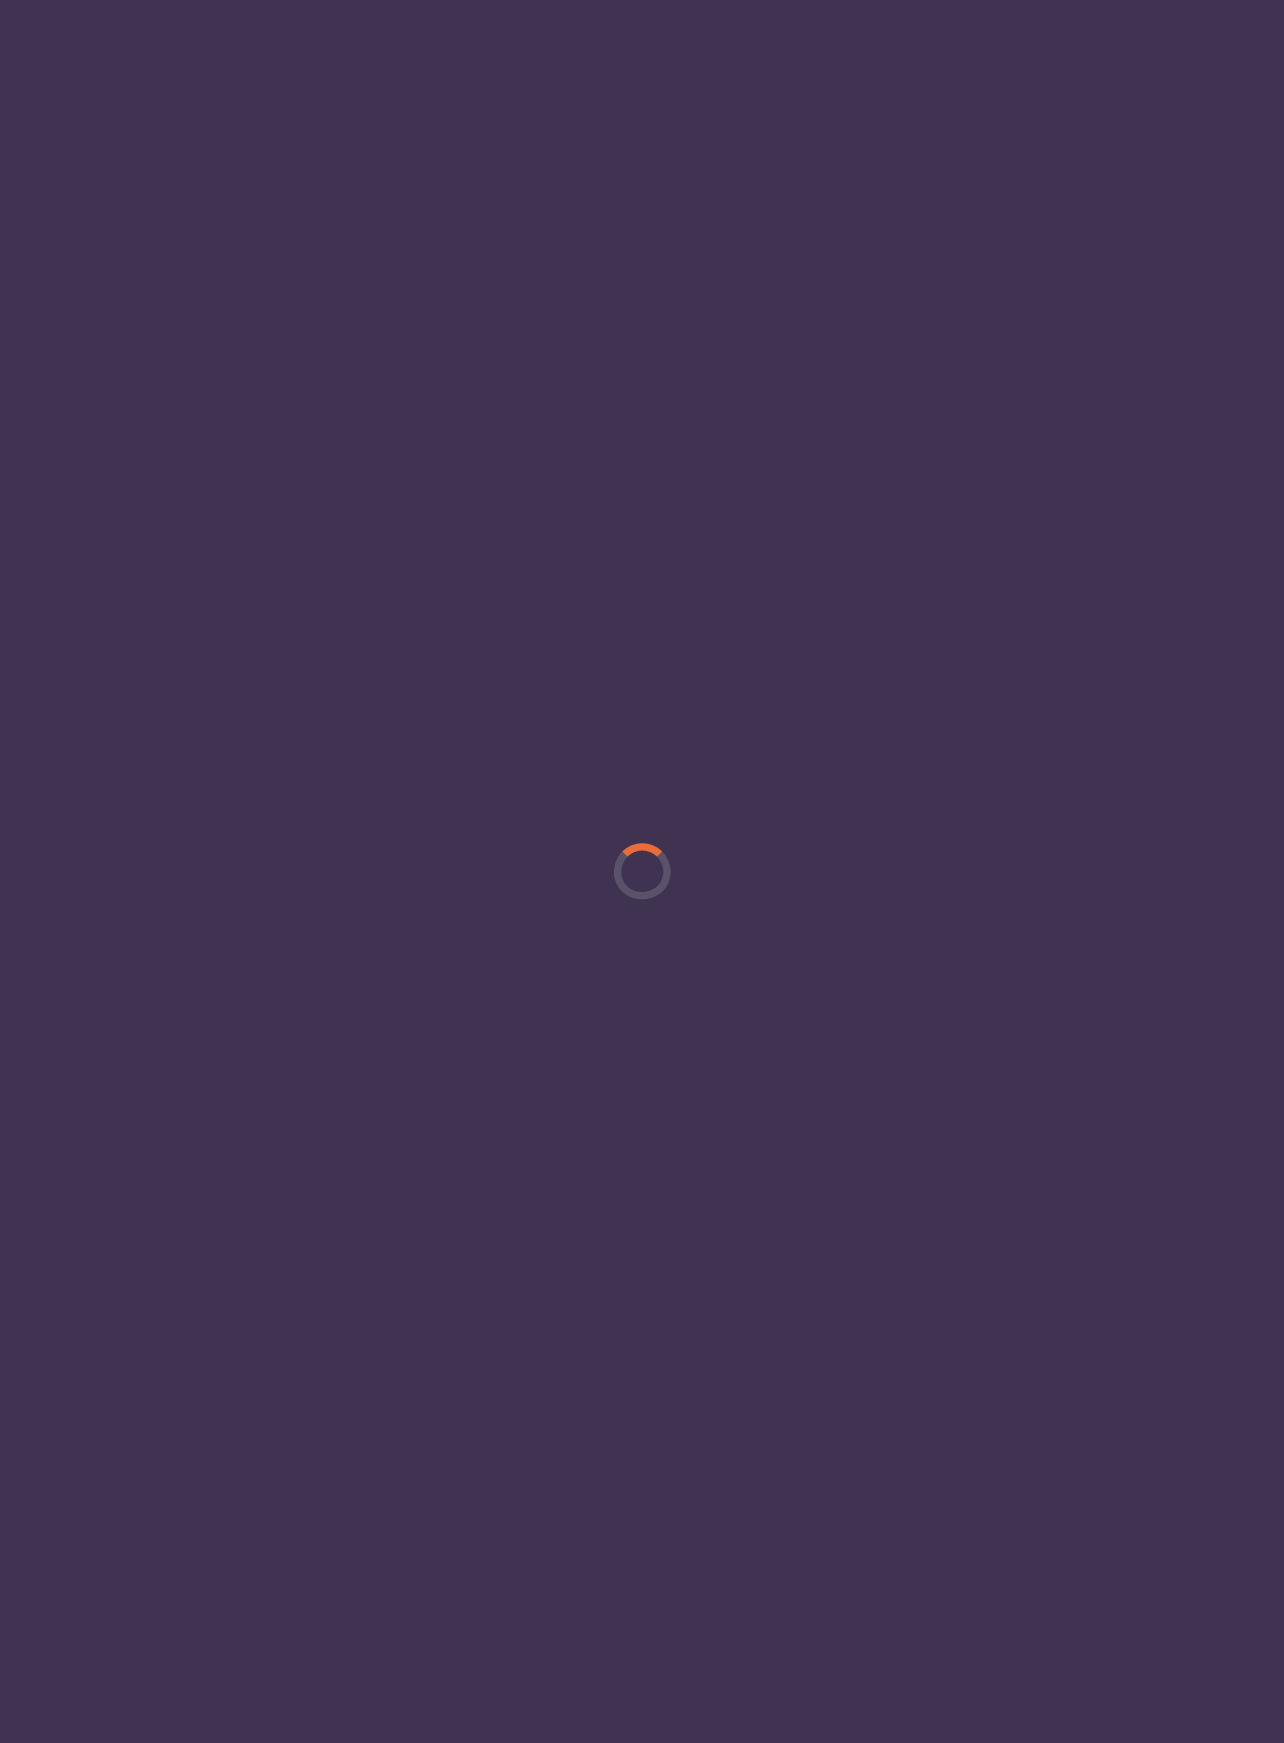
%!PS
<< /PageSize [1284 1743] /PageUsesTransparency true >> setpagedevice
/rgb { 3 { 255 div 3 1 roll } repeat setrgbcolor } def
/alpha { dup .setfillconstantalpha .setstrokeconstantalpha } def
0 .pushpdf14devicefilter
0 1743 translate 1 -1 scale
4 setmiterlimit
64 51 81 rgb
0 0 1284 1743 rectfill
234 109 55 rgb
7 setlinewidth
625 854 moveto 9.5 -9.5 25 -9.5 34.5 0 rcurveto stroke
0.15 alpha
255 255 255 rgb
659.5 854 moveto 4.5 4.5 7.5 11 7.5 17.5 rcurveto 0 29 -43 33.5 -49 5 rcurveto -1.5 -8 1 -16.5 7 -22.5 rcurveto stroke
.poppdf14devicefilter showpage
